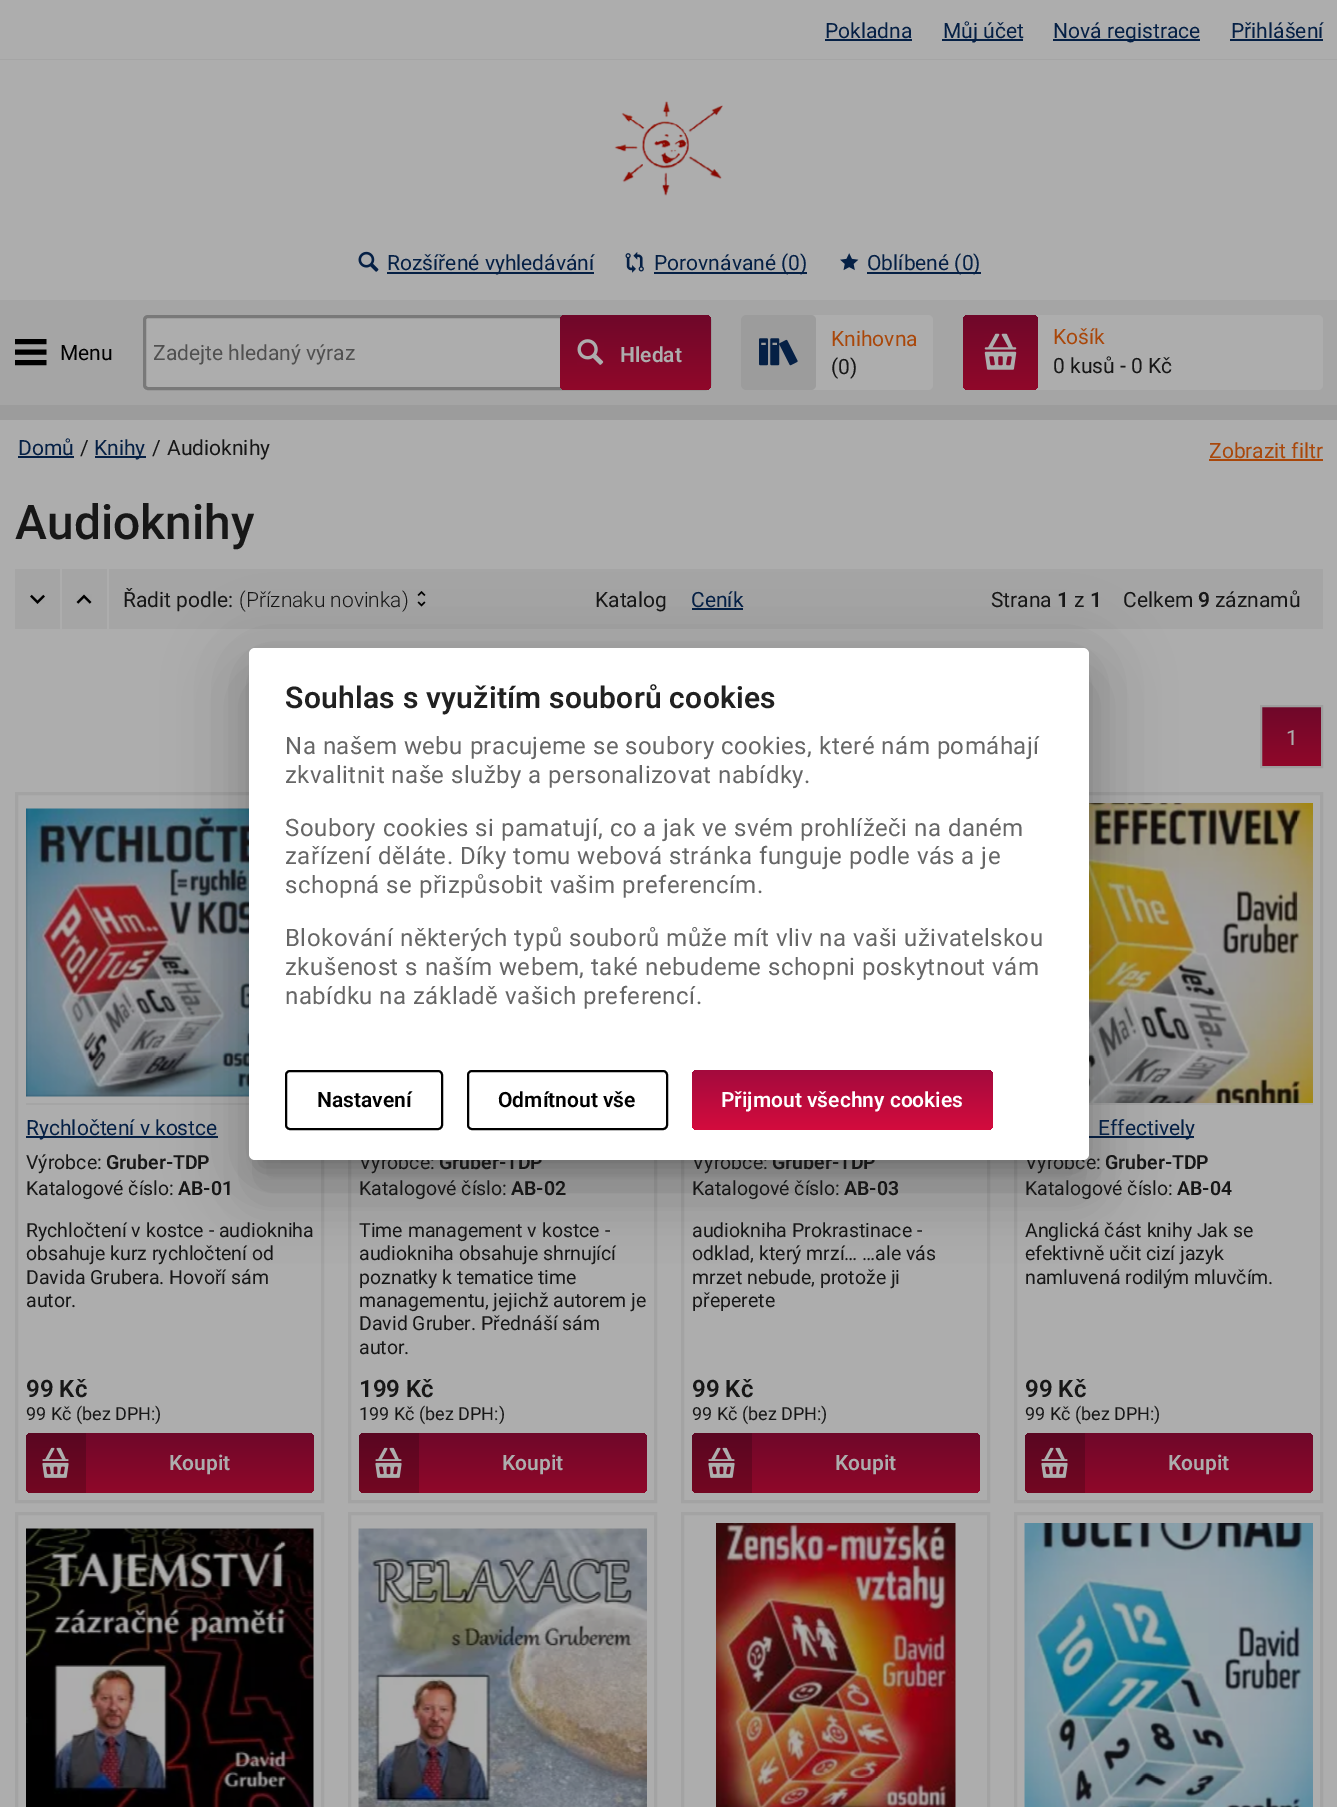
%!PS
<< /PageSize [1337 1807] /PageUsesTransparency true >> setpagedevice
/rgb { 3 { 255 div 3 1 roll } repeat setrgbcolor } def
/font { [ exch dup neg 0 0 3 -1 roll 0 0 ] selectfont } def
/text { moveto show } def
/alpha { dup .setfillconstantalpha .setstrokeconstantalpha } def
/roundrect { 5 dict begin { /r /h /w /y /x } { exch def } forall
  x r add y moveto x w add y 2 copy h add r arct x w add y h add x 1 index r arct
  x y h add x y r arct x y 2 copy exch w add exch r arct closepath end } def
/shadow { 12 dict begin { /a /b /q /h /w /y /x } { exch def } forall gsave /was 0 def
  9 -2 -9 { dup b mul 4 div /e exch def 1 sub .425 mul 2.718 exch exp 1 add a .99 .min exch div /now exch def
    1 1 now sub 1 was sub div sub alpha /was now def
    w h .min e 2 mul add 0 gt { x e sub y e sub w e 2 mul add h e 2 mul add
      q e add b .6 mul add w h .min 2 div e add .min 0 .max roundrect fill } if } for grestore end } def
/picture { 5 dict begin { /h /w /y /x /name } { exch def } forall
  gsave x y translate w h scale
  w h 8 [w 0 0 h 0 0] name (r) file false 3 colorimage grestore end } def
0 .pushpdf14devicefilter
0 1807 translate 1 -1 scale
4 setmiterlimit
156 156 156 rgb
0 0 1337 1807 rectfill
173 173 173 rgb
0 0 1337 59 rectfill
165 165 165 rgb
0 59 1337 1 rectfill
5 32 69 rgb
825 39 87 2 rectfill
942 39 81 2 rectfill
1053 39 147 2 rectfill
1230 39 93 2 rectfill
173 173 173 rgb
0 60 1337 240 rectfill
(img_01.rgb) 614 101 109 95 picture
(img_02.rgb) 358 251 21 21 picture
5 32 69 rgb
387 272 207 2 rectfill
(img_03.rgb) 625 252 19 21 picture
654 272 153 2 rectfill
(img_04.rgb) 840 253 19 18 picture
867 272 114 2 rectfill
165 165 165 rgb
0 300 1337 105 rectfill
(img_05.rgb) 15 339 32 27 picture
173 173 173 rgb
144.5 316.5 565 72 3.5 roundrect gsave fill grestore
121 121 121 rgb
3 setlinewidth
stroke
gsave 560 315 151 75 5 roundrect clip newpath
<< /ShadingType 2 /ColorSpace /DeviceRGB /Coords [635 390 635 315] /Extend [true true] /Function << /FunctionType 2 /Domain [0 1] /C0 [0.565 0.031 0.165] /C1 [0.435 0.027 0.161] /N 1 >> >> shfill grestore
(img_06.rgb) 577 339 27 26 picture
173 173 173 rgb
741 315 192 75 5 roundrect fill
156 156 156 rgb
741 315 75 75 5 roundrect fill
(img_07.rgb) 759 338 39 28 picture
173 173 173 rgb
963 315 360 75 5 roundrect fill
gsave 963 315 75 75 5 roundrect clip newpath
<< /ShadingType 2 /ColorSpace /DeviceRGB /Coords [1001 390 1001 315] /Extend [true true] /Function << /FunctionType 2 /Domain [0 1] /C0 [0.565 0.031 0.165] /C1 [0.435 0.027 0.161] /N 1 >> >> shfill grestore
(img_08.rgb) 984 333 33 37 picture
0 420 1337 1387 rectfill
5 32 69 rgb
18 456 56 2 rectfill
95 456 51 2 rectfill
165 165 165 rgb
15 569 1308 60 rectfill
173 173 173 rgb
60 569 2 60 rectfill
(img_09.rgb) 30 594 15 10 picture
107 569 2 60 rectfill
(img_10.rgb) 76 594 16 10 picture
(img_11.rgb) 417 591 9 16 picture
5 32 69 rgb
692 608 51 2 rectfill
gsave 1262 707 moveto 59 0 rlineto 0 59 rlineto -59 0 rlineto closepath clip newpath
<< /ShadingType 2 /ColorSpace /DeviceRGB /Coords [1292 767 1292 707] /Extend [true true] /Function << /FunctionType 2 /Domain [0 1] /C0 [0.565 0.031 0.165] /C1 [0.435 0.027 0.161] /N 1 >> >> shfill grestore
158 158 158 rgb
2 setlinewidth
1261 706 61 61 rectstroke
163 163 163 rgb
3 setlinewidth
16.5 793.5 306 708 rectstroke
165 165 165 rgb
26 1103 223 2 rectfill
(img_12.rgb) 26 808 223 289 picture
5 32 69 rgb
26 1136 192 2 rectfill
gsave 26 1433 288 60 5 roundrect clip newpath
<< /ShadingType 2 /ColorSpace /DeviceRGB /Coords [170 1493 170 1433] /Extend [true true] /Function << /FunctionType 2 /Domain [0 1] /C0 [0.565 0.031 0.165] /C1 [0.435 0.027 0.161] /N 1 >> >> shfill grestore
0.2 alpha
0 0 0 rgb
31 1433 moveto 55 0 rlineto 0 60 rlineto -55 0 rlineto -3 0 -5 -2 -5 -5 rcurveto 0 -50 rlineto 0 -3 2 -5 5 -5 rcurveto closepath fill
1 alpha
(img_13.rgb) 42 1447 27 31 picture
163 163 163 rgb
349.5 793.5 306 708 rectstroke
gsave 359 1433 288 60 5 roundrect clip newpath
<< /ShadingType 2 /ColorSpace /DeviceRGB /Coords [503 1493 503 1433] /Extend [true true] /Function << /FunctionType 2 /Domain [0 1] /C0 [0.565 0.031 0.165] /C1 [0.435 0.027 0.161] /N 1 >> >> shfill grestore
0.2 alpha
0 0 0 rgb
364 1433 moveto 55 0 rlineto 0 60 rlineto -55 0 rlineto -3 0 -5 -2 -5 -5 rcurveto 0 -50 rlineto 0 -3 2 -5 5 -5 rcurveto closepath fill
1 alpha
(img_13.rgb) 375 1447 27 31 picture
163 163 163 rgb
682.5 793.5 306 708 rectstroke
gsave 692 1433 288 60 5 roundrect clip newpath
<< /ShadingType 2 /ColorSpace /DeviceRGB /Coords [836 1493 836 1433] /Extend [true true] /Function << /FunctionType 2 /Domain [0 1] /C0 [0.565 0.031 0.165] /C1 [0.435 0.027 0.161] /N 1 >> >> shfill grestore
0.2 alpha
0 0 0 rgb
697 1433 moveto 55 0 rlineto 0 60 rlineto -55 0 rlineto -3 0 -5 -2 -5 -5 rcurveto 0 -50 rlineto 0 -3 2 -5 5 -5 rcurveto closepath fill
1 alpha
(img_13.rgb) 708 1447 27 31 picture
163 163 163 rgb
1015.5 793.5 306 708 rectstroke
165 165 165 rgb
1089 1103 224 2 rectfill
(img_14.rgb) 1089 803 224 300 picture
5 32 69 rgb
1089 1136 105 2 rectfill
gsave 1025 1433 288 60 5 roundrect clip newpath
<< /ShadingType 2 /ColorSpace /DeviceRGB /Coords [1169 1493 1169 1433] /Extend [true true] /Function << /FunctionType 2 /Domain [0 1] /C0 [0.565 0.031 0.165] /C1 [0.435 0.027 0.161] /N 1 >> >> shfill grestore
0.2 alpha
0 0 0 rgb
1030 1433 moveto 55 0 rlineto 0 60 rlineto -55 0 rlineto -3 0 -5 -2 -5 -5 rcurveto 0 -50 rlineto 0 -3 2 -5 5 -5 rcurveto closepath fill
1 alpha
(img_13.rgb) 1041 1447 27 31 picture
163 163 163 rgb
16.5 1513.5 306 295 rectstroke
(img_15.rgb) 26 1528 288 279 picture
349.5 1513.5 306 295 rectstroke
(img_16.rgb) 358 1528 289 279 picture
682.5 1513.5 306 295 rectstroke
(img_17.rgb) 716 1523 240 284 picture
1015.5 1513.5 306 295 rectstroke
(img_18.rgb) 1024 1523 289 284 picture
169 71 10 rgb
1209 459 114 2 rectfill
0 0 0 rgb
237 650 864 535 18 34.5 0.12 shadow
245 680 849 520 11 28.5 0.14 shadow
260 675 819 491 0 11 0.2 shadow
/Roboto-Regular 21 font
5 32 69 rgb
(Pokladna) 825 38 text
(Můj účet) 943 38 text
(Nová registrace) 1053 38 text
(Přihlášení) 1231 38 text
(Rozšířené vyhledávání) 387 270 text
(Porovnávané \(0\)) 654 270 text
(Oblíbené \(0\)) 867 270 text
0 0 0 rgb
(Menu) 60 360 text
80 80 80 rgb
(Zadejte hledaný výraz) 153 360 text
/Roboto-SemiBold 21 font
173 173 173 rgb
(Hledat) 620 362 text
/Roboto-Regular 21 font
169 71 10 rgb
(Knihovna) 831 346 text
23 23 23 rgb
(\(0\)) 831 374 text
169 71 10 rgb
(Košík) 1053 344 text
23 23 23 rgb
(0 kusů - 0 Kč) 1053 373 text
5 32 69 rgb
(Domů) 18 455 text
23 23 23 rgb
(/) 80 455 text
5 32 69 rgb
(Knihy) 94 455 text
23 23 23 rgb
(/) 152 455 text
(Audioknihy) 167 455 text
/Roboto-Medium 48 font
(Audioknihy) 15 539 text
/Roboto-Regular 21 font
(Řadit podle:) 123 607 text
/Roboto-Light 21 font
(\(Příznaku novinka\)) 239 607 text
/Roboto-Regular 21 font
(Katalog) 595 607 text
5 32 69 rgb
(Ceník) 691 607 text
23 23 23 rgb
(Strana) 991 607 text
/Roboto-SemiBold 21 font
(1) 1057 607 text
/Roboto-Regular 21 font
(z) 1074 607 text
/Roboto-SemiBold 21 font
(1) 1090 607 text
/Roboto-Regular 21 font
(Celkem) 1123 607 text
/Roboto-SemiBold 21 font
(9) 1198 607 text
/Roboto-Regular 21 font
(záznamů) 1215 607 text
173 173 173 rgb
(1) 1286 745 text
5 32 69 rgb
(Rychločtení v kostce) 26 1135 text
/Roboto-Regular 19.5 font
23 23 23 rgb
(Výrobce:) 26 1169 text
/Roboto-SemiBold 19.5 font
(Gruber-TDP) 106 1169 text
/Roboto-Regular 19.5 font
(Katalogové číslo:) 26 1195 text
/Roboto-SemiBold 19.5 font
(AB-01) 178 1195 text
/Roboto-Regular 19.5 font
(Rychločtení v kostce - audiokniha) 26 1237 text
(obsahuje kurz rychločtení od) 26 1260 text
(Davida Grubera. Hovoří sám) 26 1284 text
(autor.) 26 1307 text
/Roboto-SemiBold 24 font
(99 Kč) 26 1397 text
/Roboto-Regular 18 font
(99 Kč \(bez DPH:\)) 26 1420 text
/Roboto-SemiBold 21 font
173 173 173 rgb
(Koupit) 169 1470 text
/Roboto-Regular 19.5 font
23 23 23 rgb
(Výrobce:) 359 1169 text
/Roboto-SemiBold 19.5 font
(Gruber-TDP) 439 1169 text
/Roboto-Regular 19.5 font
(Katalogové číslo:) 359 1195 text
/Roboto-SemiBold 19.5 font
(AB-02) 511 1195 text
/Roboto-Regular 19.5 font
(Time management v kostce -) 359 1237 text
(audiokniha obsahuje shrnující) 359 1260 text
(poznatky k tematice time) 359 1284 text
(managementu, jejichž autorem je) 359 1307 text
(David Gruber. Přednáší sám) 359 1330 text
(autor.) 359 1354 text
/Roboto-SemiBold 24 font
(199 Kč) 359 1397 text
/Roboto-Regular 18 font
(199 Kč \(bez DPH:\)) 359 1420 text
/Roboto-SemiBold 21 font
173 173 173 rgb
(Koupit) 502 1470 text
/Roboto-Regular 19.5 font
23 23 23 rgb
(Výrobce:) 692 1169 text
/Roboto-SemiBold 19.5 font
(Gruber-TDP) 772 1169 text
/Roboto-Regular 19.5 font
(Katalogové číslo:) 692 1195 text
/Roboto-SemiBold 19.5 font
(AB-03) 844 1195 text
/Roboto-Regular 19.5 font
(audiokniha Prokrastinace -) 692 1237 text
(odklad, který mrzí… …ale vás) 692 1260 text
(mrzet nebude, protože ji) 692 1284 text
(přeperete) 692 1307 text
/Roboto-SemiBold 24 font
(99 Kč) 692 1397 text
/Roboto-Regular 18 font
(99 Kč \(bez DPH:\)) 692 1420 text
/Roboto-SemiBold 21 font
173 173 173 rgb
(Koupit) 835 1470 text
/Roboto-Regular 21 font
5 32 69 rgb
(Effectively) 1098 1135 text
/Roboto-Regular 19.5 font
23 23 23 rgb
(Výrobce:) 1025 1169 text
/Roboto-SemiBold 19.5 font
(Gruber-TDP) 1105 1169 text
/Roboto-Regular 19.5 font
(Katalogové číslo:) 1025 1195 text
/Roboto-SemiBold 19.5 font
(AB-04) 1177 1195 text
/Roboto-Regular 19.5 font
(Anglická část knihy Jak se) 1025 1237 text
(efektivně učit cizí jazyk) 1025 1260 text
(namluvená rodilým mluvčím.) 1025 1284 text
/Roboto-SemiBold 24 font
(99 Kč) 1025 1397 text
/Roboto-Regular 18 font
(99 Kč \(bez DPH:\)) 1025 1420 text
/Roboto-SemiBold 21 font
173 173 173 rgb
(Koupit) 1168 1470 text
/Roboto-Regular 21 font
169 71 10 rgb
(Zobrazit filtr) 1209 458 text
255 255 255 rgb
249 648 840 512 6 roundrect fill
/Roboto-SemiBold 30 font
33 33 33 rgb
285 708 moveto 0.25 0 (Souhlas s využitím souborů cookies) ashow
/Roboto-Regular 24 font
102 102 102 rgb
285 754 moveto 0.47 0 (Na našem webu pracujeme se soubory cookies, které nám pomáhají) ashow
285 783 moveto 0.47 0 (zkvalitnit naše služby a personalizovat nabídky.) ashow
285 836 moveto 0.47 0 (Soubory cookies si pamatují, co a jak ve svém prohlížeči na daném) ashow
285 864 moveto 0.47 0 (zařízení děláte. Díky tomu webová stránka funguje podle vás a je) ashow
285 893 moveto 0.47 0 (schopná se přizpůsobit vašim preferencím.) ashow
285 946 moveto 0.47 0 (Blokování některých typů souborů může mít vliv na vaši uživatelskou) ashow
285 975 moveto 0.47 0 (zkušenost s naším webem, také nebudeme schopni poskytnout vám) ashow
285 1004 moveto 0.47 0 (nabídku na základě vašich preferencí.) ashow
0 0 0 rgb
2 setlinewidth
286 1071 156 58 4 roundrect stroke
/Roboto-SemiBold 21 font
(Nastavení) 317 1107 text
468 1071 199 58 4 roundrect stroke
(Odmítnout vše) 498 1107 text
gsave 692 1070 301 60 5 roundrect clip newpath
<< /ShadingType 2 /ColorSpace /DeviceRGB /Coords [842 1130 842 1070] /Extend [true true] /Function << /FunctionType 2 /Domain [0 1] /C0 [0.831 0.047 0.243] /C1 [0.639 0.039 0.239] /N 1 >> >> shfill grestore
255 255 255 rgb
(Přijmout všechny cookies) 721 1107 text
.poppdf14devicefilter showpage
